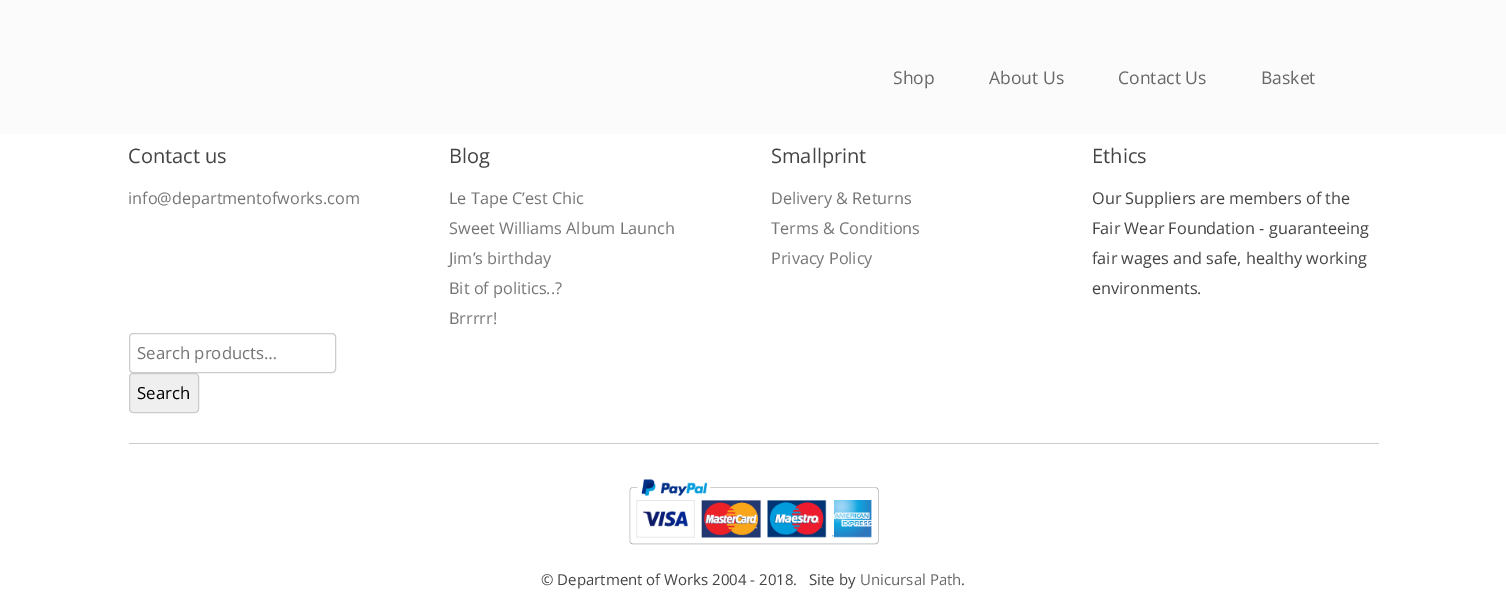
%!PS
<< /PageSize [1506 602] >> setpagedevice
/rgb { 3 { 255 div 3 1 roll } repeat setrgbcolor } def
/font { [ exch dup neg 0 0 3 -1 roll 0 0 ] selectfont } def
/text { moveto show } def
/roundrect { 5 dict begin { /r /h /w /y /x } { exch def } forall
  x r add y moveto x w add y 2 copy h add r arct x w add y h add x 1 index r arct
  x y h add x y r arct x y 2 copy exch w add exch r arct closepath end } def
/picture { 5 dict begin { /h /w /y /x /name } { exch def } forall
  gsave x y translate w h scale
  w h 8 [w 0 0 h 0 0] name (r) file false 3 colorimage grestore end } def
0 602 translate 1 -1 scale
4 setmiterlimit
255 255 255 rgb
0 0 1506 602 rectfill
251 251 251 rgb
0 0 1506 134 rectfill
204 204 204 rgb
129.5 333.5 206 39 3.5 roundrect stroke
239 239 239 rgb
129.5 373.5 69 39 3.5 roundrect gsave fill grestore
204 204 204 rgb
stroke
129 443 1250 1 rectfill
(img_01.rgb) 629 479 250 66 picture
/OpenSans-Regular 17.5 font
104 104 104 rgb
(Shop) 893 84 text
(About Us) 989 84 text
(Contact Us) 1118 84 text
(Basket) 1261 84 text
/OpenSans-Regular 20 font
68 68 68 rgb
(Contact us) 128 163 text
/OpenSans-Regular 16.25 font
117 117 117 rgb
(info@departmentofworks.com) 128 204 text
/OpenSans-Regular 16.75 font
(Search products…) 137 359 text
0 0 0 rgb
(Search) 137 399 text
/OpenSans-Regular 20 font
68 68 68 rgb
(Blog) 449 163 text
/OpenSans-Regular 16.25 font
117 117 117 rgb
(Le Tape C’est Chic) 449 204 text
(Sweet Williams Album Launch) 449 234 text
(Jim’s birthday) 449 264 text
(Bit of politics..?) 449 294 text
(Brrrrr!) 449 324 text
/OpenSans-Regular 20 font
68 68 68 rgb
(Smallprint) 771 163 text
/OpenSans-Regular 16.25 font
117 117 117 rgb
(Delivery & Returns) 771 204 text
(Terms & Conditions) 771 234 text
(Privacy Policy) 771 264 text
/OpenSans-Regular 20 font
68 68 68 rgb
(Ethics) 1092 163 text
/OpenSans-Regular 16.25 font
(Our Suppliers are members of the) 1092 204 text
(Fair Wear Foundation - guaranteeing) 1092 234 text
(fair wages and safe, healthy working) 1092 264 text
(environments.) 1092 294 text
/OpenSans-Regular 15 font
(© Department of Works 2004 - 2018.   Site by) 541 585 text
104 104 104 rgb
(Unicursal Path) 860 585 text
68 68 68 rgb
(.) 961 585 text
showpage
